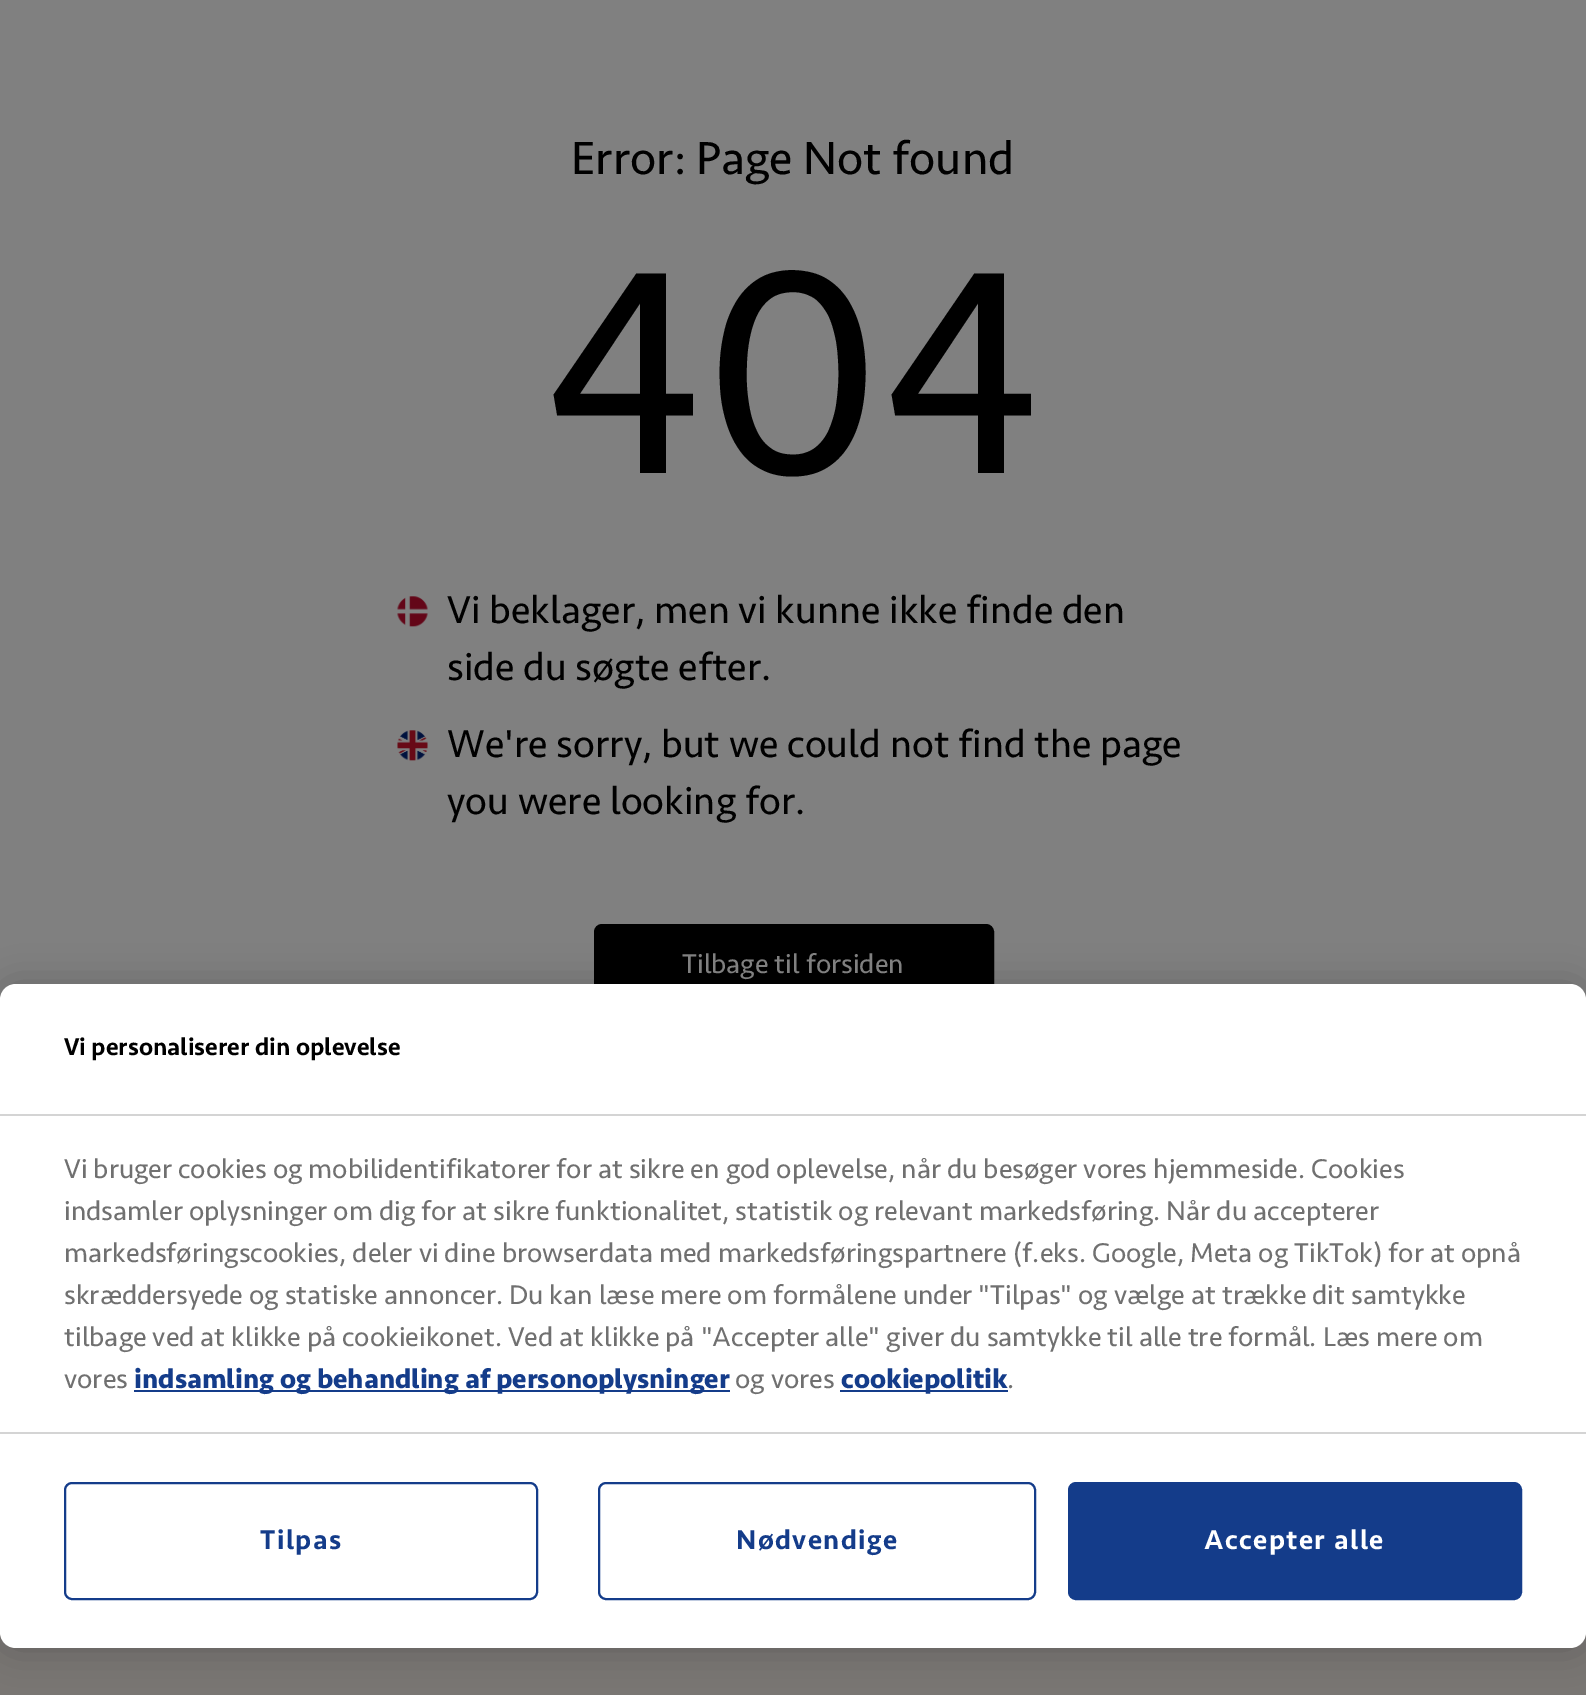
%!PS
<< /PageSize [1586 1695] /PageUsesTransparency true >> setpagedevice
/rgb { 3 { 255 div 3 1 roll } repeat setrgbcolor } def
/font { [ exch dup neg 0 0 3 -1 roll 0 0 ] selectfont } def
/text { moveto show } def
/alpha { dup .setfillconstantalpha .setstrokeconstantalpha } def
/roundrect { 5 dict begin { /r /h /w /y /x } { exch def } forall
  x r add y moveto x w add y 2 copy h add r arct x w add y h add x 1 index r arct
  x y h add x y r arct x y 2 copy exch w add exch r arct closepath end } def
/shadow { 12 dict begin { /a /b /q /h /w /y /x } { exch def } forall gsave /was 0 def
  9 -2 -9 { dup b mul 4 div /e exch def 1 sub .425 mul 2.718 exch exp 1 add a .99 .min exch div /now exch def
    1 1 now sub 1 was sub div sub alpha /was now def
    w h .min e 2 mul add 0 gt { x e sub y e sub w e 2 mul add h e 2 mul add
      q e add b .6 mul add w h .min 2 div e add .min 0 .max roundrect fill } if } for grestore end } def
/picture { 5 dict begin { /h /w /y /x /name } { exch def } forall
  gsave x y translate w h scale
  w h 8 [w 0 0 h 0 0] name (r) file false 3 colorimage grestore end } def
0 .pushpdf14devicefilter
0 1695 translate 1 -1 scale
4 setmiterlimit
121 118 115 rgb
0 0 1586 1695 rectfill
128 128 128 rgb
0 0 1586 1000 rectfill
(img_01.rgb) 397 596 31 31 picture
(img_02.rgb) 397 730 31 31 picture
0 0 0 rgb
595 925 398 82 7 roundrect gsave fill grestore
2 setlinewidth
stroke
0 984 1586 664 16 18 0.2 shadow
255 255 255 rgb
16 984 moveto 1554 0 rlineto 9 0 16 7 16 16 rcurveto 0 432 rlineto -1586 0 rlineto 0 -432 rlineto 0 -9 7 -16 16 -16 rcurveto closepath fill
212 212 212 rgb
0 1114 1586 2 rectfill
20 60 138 rgb
134 1390 596 2 rectfill
840 1390 168 2 rectfill
255 255 255 rgb
0 1432 moveto 1586 0 rlineto 0 200 rlineto 0 9 -7 16 -16 16 rcurveto -1554 0 rlineto -9 0 -16 -7 -16 -16 rcurveto closepath fill
212 212 212 rgb
0 1432 1586 2 rectfill
20 60 138 rgb
65 1483 472 116 7 roundrect stroke
599 1483 436 116 7 roundrect stroke
1069 1483 452 116 7 roundrect gsave fill grestore
stroke
/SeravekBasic-Regular 48 font
0 0 0 rgb
(Error: Page Not found) 571 174 text
/SeravekBasic-Regular 300 font
(404) 543 473 text
/SeravekBasic-Regular 40 font
(Vi beklager, men vi kunne ikke finde den) 447 623 text
(side du søgte efter.) 447 680 text
(We're sorry, but we could not find the page) 447 757 text
(you were looking for.) 447 814 text
/SeravekBasic-Regular 28 font
128 128 128 rgb
(Tilbage til forsiden) 682 973 text
/SeravekBasic-Medium 25 font
0 0 0 rgb
(Vi personaliserer din oplevelse) 64 1055 text
/SeravekBasic-Regular 28 font
112 112 112 rgb
(Vi bruger cookies og mobilidentifikatorer for at sikre en god oplevelse, når du besøger vores hjemmeside. Cookies) 64 1178 text
(indsamler oplysninger om dig for at sikre funktionalitet, statistik og relevant markedsføring. Når du accepterer) 64 1220 text
(markedsføringscookies, deler vi dine browserdata med markedsføringspartnere \(f.eks. Google, Meta og TikTok\) for at opnå) 64 1262 text
(skræddersyede og statiske annoncer. Du kan læse mere om formålene under "Tilpas" og vælge at trække dit samtykke) 64 1304 text
(tilbage ved at klikke på cookieikonet. Ved at klikke på "Accepter alle" giver du samtykke til alle tre formål. Læs mere om) 64 1346 text
(vores) 64 1388 text
/SeravekBasic-Bold 28 font
20 60 138 rgb
(indsamling og behandling af personoplysninger) 134 1388 text
/SeravekBasic-Regular 28 font
112 112 112 rgb
(og vores) 735 1388 text
/SeravekBasic-Bold 28 font
20 60 138 rgb
(cookiepolitik) 841 1388 text
/SeravekBasic-Regular 28 font
112 112 112 rgb
(.) 1007 1388 text
/SeravekBasic-Medium 28 font
20 60 138 rgb
260 1549 moveto 1.4 0 (Tilpas) ashow
736 1549 moveto 1.4 0 (Nødvendige) ashow
255 255 255 rgb
1204 1549 moveto 1.4 0 (Accepter alle) ashow
.poppdf14devicefilter showpage
